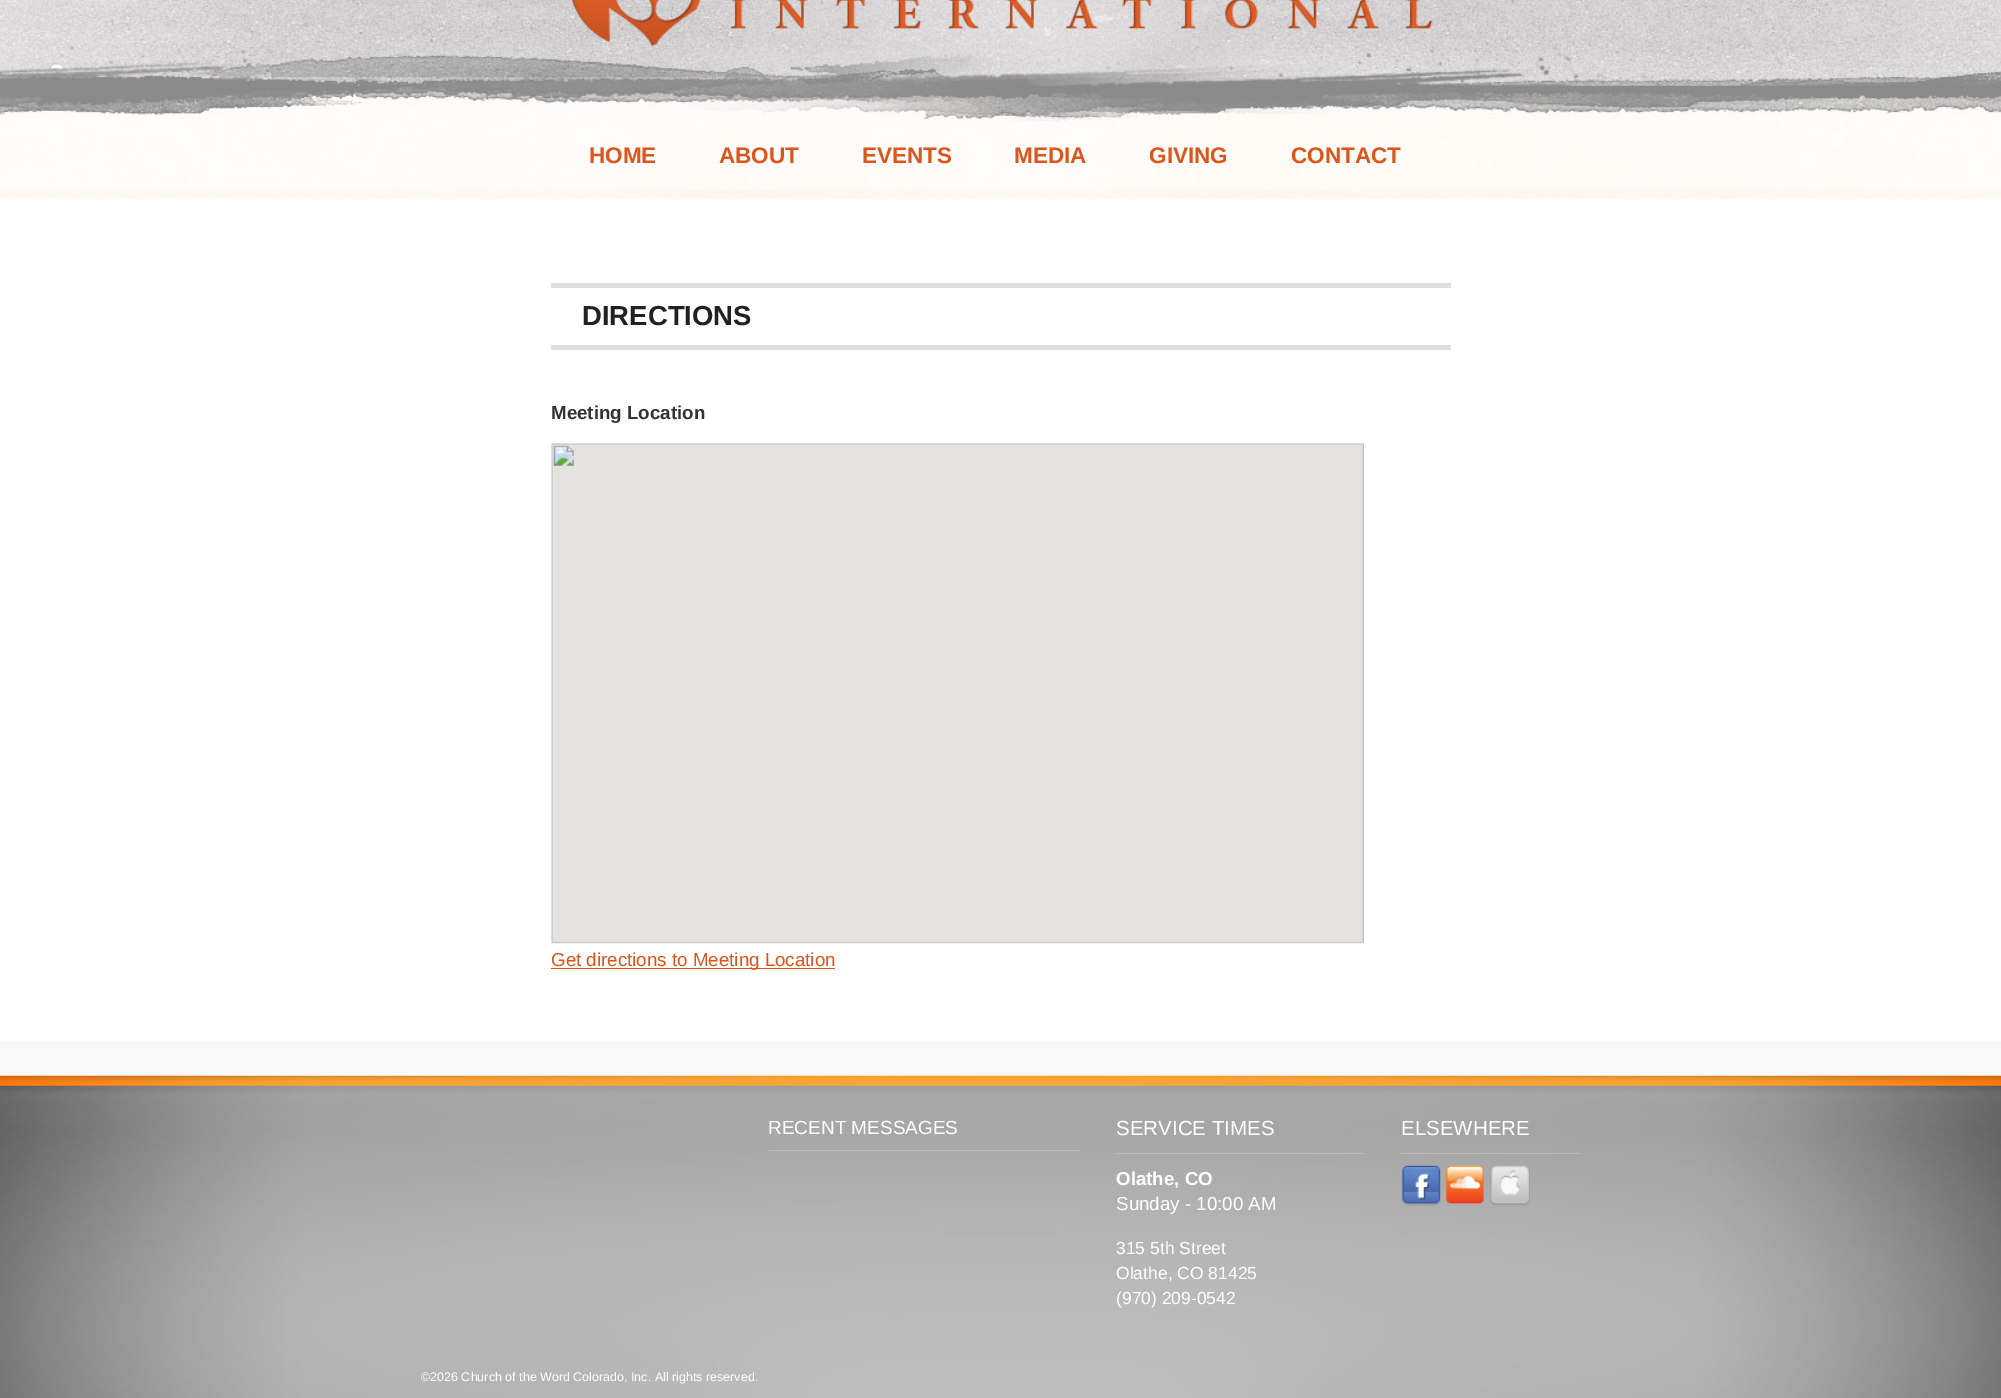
%!PS
<< /PageSize [2001 1398] >> setpagedevice
/rgb { 3 { 255 div 3 1 roll } repeat setrgbcolor } def
/font { [ exch dup neg 0 0 3 -1 roll 0 0 ] selectfont } def
/text { moveto show } def
/picture { 5 dict begin { /h /w /y /x /name } { exch def } forall
  gsave x y translate w h scale
  w h 8 [w 0 0 h 0 0] name (r) file false 3 colorimage grestore end } def
0 1398 translate 1 -1 scale
4 setmiterlimit
255 255 255 rgb
0 0 2001 1398 rectfill
(img_01.rgb) 0 0 2001 200 picture
(img_02.rgb) 571 0 862 46 picture
223 223 223 rgb
551 283 900 5 rectfill
551 345 900 5 rectfill
(img_03.rgb) 551 443 813 501 picture
219 86 29 rgb
551 968 284 1 rectfill
(img_04.rgb) 0 1041 2001 357 picture
188 187 186 rgb
769 1150 310 1 rectfill
1116 1153 248 1 rectfill
1401 1153 180 1 rectfill
(img_05.rgb) 1401 1165 40 41 picture
(img_06.rgb) 1446 1165 38 39 picture
(img_07.rgb) 1490 1165 40 41 picture
/LiberationSans-Bold 22.5 font
219 86 29 rgb
(HOME) 589 163 text
(ABOUT) 719 163 text
(EVENTS) 862 163 text
(MEDIA) 1014 163 text
(GIVING) 1149 163 text
(CONTACT) 1291 163 text
/LiberationSans-Bold 27.5 font
33 33 33 rgb
(DIRECTIONS) 582 325 text
/LiberationSans-Bold 18.75 font
51 51 51 rgb
(Meeting Location) 551 419 text
/LiberationSans-Regular 18.75 font
219 86 29 rgb
(Get directions to Meeting Location) 551 966 text
/LiberationSans-Regular 19 font
255 255 255 rgb
(RECENT MESSAGES) 768 1134 text
/LiberationSans-Regular 20.5 font
(SERVICE TIMES) 1116 1135 text
/LiberationSans-Bold 18.75 font
(Olathe, CO) 1116 1185 text
/LiberationSans-Regular 18.75 font
(Sunday - 10:00 AM) 1116 1210 text
/LiberationSans-Regular 17.5 font
(315 5th Street) 1116 1254 text
(Olathe, CO 81425) 1116 1279 text
(\(970\) 209-0542) 1116 1304 text
/LiberationSans-Regular 20.5 font
(ELSEWHERE) 1401 1135 text
/LiberationSans-Regular 12.5 font
(©2026 Church of the Word Colorado, Inc. All rights reserved.) 421 1381 text
showpage
